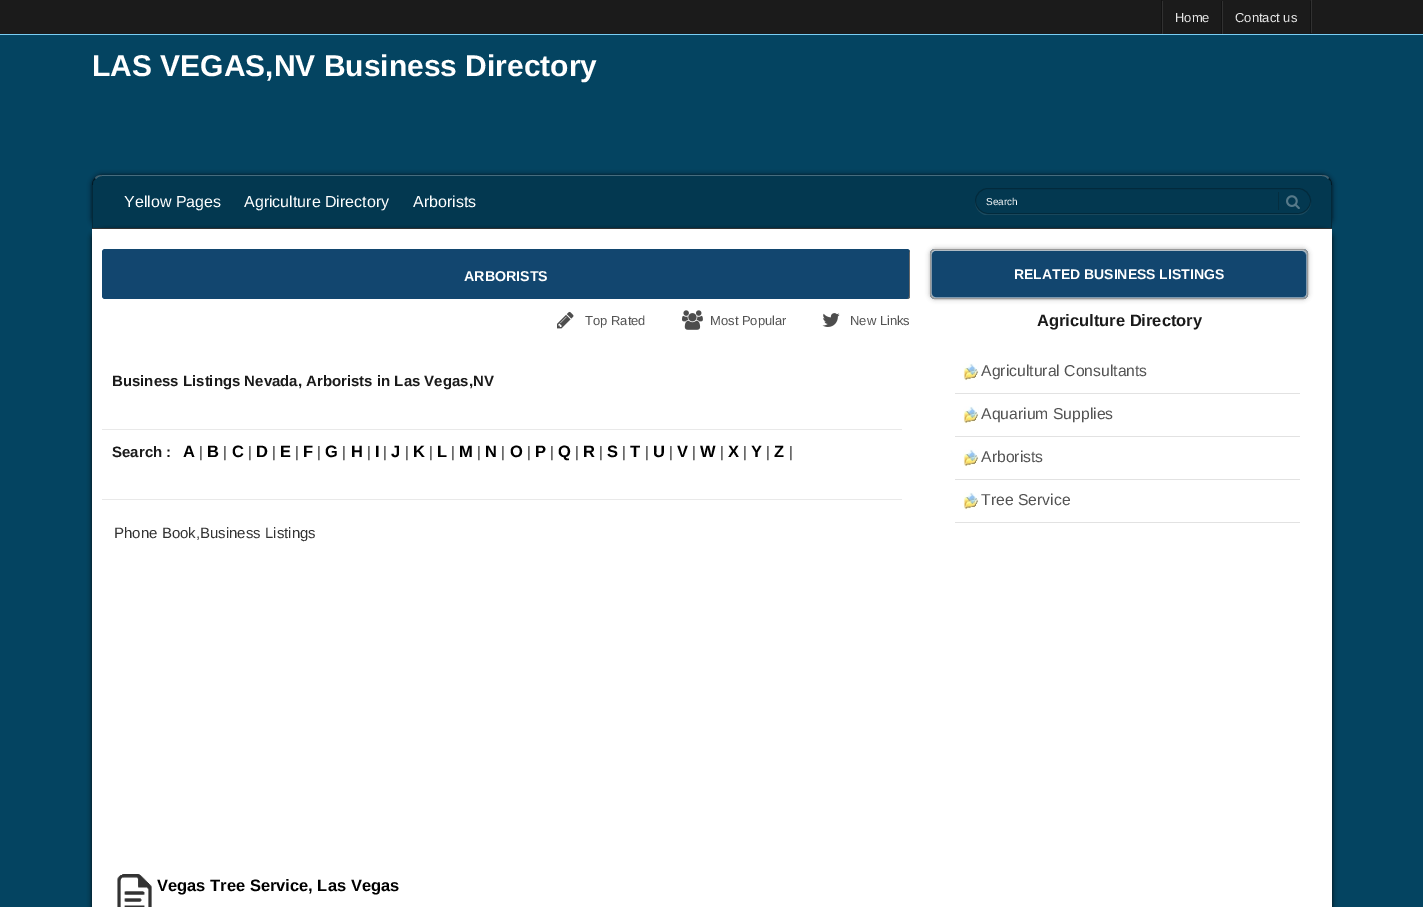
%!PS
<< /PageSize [1423 907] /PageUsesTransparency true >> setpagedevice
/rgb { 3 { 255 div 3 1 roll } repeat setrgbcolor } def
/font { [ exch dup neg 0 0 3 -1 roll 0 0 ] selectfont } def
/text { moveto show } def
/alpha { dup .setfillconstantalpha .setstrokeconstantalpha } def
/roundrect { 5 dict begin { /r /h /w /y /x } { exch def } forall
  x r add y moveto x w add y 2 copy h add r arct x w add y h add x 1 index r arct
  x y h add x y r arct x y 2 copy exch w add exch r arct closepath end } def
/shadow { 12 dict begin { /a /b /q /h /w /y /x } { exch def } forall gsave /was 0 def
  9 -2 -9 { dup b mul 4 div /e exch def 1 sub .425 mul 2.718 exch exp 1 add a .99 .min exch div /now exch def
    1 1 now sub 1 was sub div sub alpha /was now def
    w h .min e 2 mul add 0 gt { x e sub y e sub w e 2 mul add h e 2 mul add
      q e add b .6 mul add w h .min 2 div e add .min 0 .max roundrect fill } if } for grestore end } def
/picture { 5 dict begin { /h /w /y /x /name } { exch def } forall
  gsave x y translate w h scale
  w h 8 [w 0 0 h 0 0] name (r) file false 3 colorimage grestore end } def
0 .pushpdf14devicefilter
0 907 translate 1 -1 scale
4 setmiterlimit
27 27 27 rgb
0 0 1423 907 rectfill
49 49 49 rgb
1311 0 1 33 rectfill
18 18 18 rgb
1161 0 1 33 rectfill
1221 1 1 33 rectfill
49 49 49 rgb
1162 1 1 33 rectfill
18 18 18 rgb
1310 1 1 33 rectfill
49 49 49 rgb
1222 1 1 33 rectfill
4 68 97 rgb
0 35 1423 872 rectfill
122 206 244 rgb
0 34 1423 1 rectfill
gsave
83 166 moveto 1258 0 rlineto 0 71 rlineto -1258 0 rlineto closepath 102 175 moveto 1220 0 rlineto 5.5 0 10 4.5 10 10 rcurveto 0 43 rlineto -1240 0 rlineto 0 -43 rlineto 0 -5.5 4.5 -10 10 -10 rcurveto closepath eoclip newpath
1 1 1 rgb
92 175 1240 53 10 2.5 0.7 shadow
grestore
0.18 alpha
0 0 0 rgb
102 175 moveto 1220 0 rlineto 5.5 0 10 4.5 10 10 rcurveto 0 43 rlineto -1240 0 rlineto 0 -43 rlineto 0 -5.5 4.5 -10 10 -10 rcurveto closepath fill
0.27 alpha
250 250 250 rgb
102 175 moveto -3 0 -6 1 -7 3 rcurveto 1 1 rlineto 1 -2 4 -3 6 -3 rcurveto 1220 0 rlineto 2 0 5 1 6 3 rcurveto 1 -1 rlineto -1 -2 -4 -3 -7 -3 rcurveto closepath fill
0.28 alpha
2 2 2 rgb
1331 228 moveto 1 0 rlineto 0 -43 rlineto 0 -3 -1 -5 -3 -7 rcurveto -1 1 rlineto 2 1 3 3 3 6 rcurveto closepath fill
92 228 moveto 1 0 rlineto 0 -43 rlineto 0 -3 1 -5 3 -6 rcurveto -1 -1 rlineto -2 2 -3 4 -3 7 rcurveto closepath fill
1 alpha
28 76 97 rgb
975 201 moveto 0 7 4 12 10 14 rcurveto 313 0 rlineto 7 0 13 -6 13 -14 rcurveto 0 7 -6 13 -13 13 rcurveto -310 0 rlineto -7 0 -13 -6 -13 -13 rcurveto closepath fill
0.25 alpha
0 0 0 rgb
975.5 188.5 335 25 12.5 roundrect stroke
1 alpha
4 46 64 rgb
1278 192 1 18 rectfill
(img_01.rgb) 1286 195 14 14 picture
1 1 1 rgb
98 231 1234 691 7 2.5 0.87 shadow
92 231 1234 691 7 2.5 0.87 shadow
255 255 255 rgb
92 229 1240 678 rectfill
51 51 51 rgb
92 228 1240 1 rectfill
18 70 111 rgb
102 249 808 50 3 roundrect fill
105 105 105 rgb
910 296 moveto 0 -46 rlineto -1 3 rlineto 0 43 rlineto 0 2 -1 3 -2 3 rcurveto 2 0 3 -1 3 -3 rcurveto closepath fill
(img_02.rgb) 557 311 17 18 picture
(img_03.rgb) 682 310 21 20 picture
(img_04.rgb) 822 313 18 14 picture
233 233 233 rgb
102 429 800 1 rectfill
102 499 800 1 rectfill
(img_05.rgb) 117 874 35 33 picture
0 0 0 rgb
930 249 378 50 5 2.5 0.28 shadow
18 70 111 rgb
930 249 378 50 5 roundrect fill
125 153 176 rgb
934 251 moveto 368 0 rlineto 2 0 4 2 4 4 rcurveto 0 40 rlineto -1 2 rlineto 1 0 2 -2 2 -3 rcurveto 0 -40 rlineto 0 -2 -2 -4 -4 -4 rcurveto -368 0 rlineto -1 0 -3 1 -3 2 rcurveto closepath fill
0.45 alpha
255 255 255 rgb
935 250 moveto -2 0 -4 2 -4 4 rcurveto 0 40 rlineto 0 2 2 4 4 4 rcurveto 1 0 rlineto -2 0 -4 -2 -4 -4 rcurveto 0 -40 rlineto 0 -2 2 -4 4 -4 rcurveto closepath fill
931 293 moveto 0 3 1 5 4 5 rcurveto 368 0 rlineto 3 0 4 -2 4 -5 rcurveto 0 2 -2 4 -4 4 rcurveto -368 0 rlineto -2 0 -4 -2 -4 -4 rcurveto closepath fill
935 251 moveto 368 0 rlineto 2 0 4 2 4 4 rcurveto 0 -3 -1 -5 -4 -5 rcurveto -368 0 rlineto -3 0 -4 2 -4 5 rcurveto 0 -2 2 -4 4 -4 rcurveto closepath fill
1 alpha
153 153 153 rgb
930.5 249.5 377 49 4.5 roundrect stroke
226 226 226 rgb
955 393 345 1 rectfill
(img_06.rgb) 963 363 16 18 picture
955 436 345 1 rectfill
(img_06.rgb) 963 406 16 18 picture
955 479 345 1 rectfill
(img_06.rgb) 963 449 16 18 picture
955 522 345 1 rectfill
(img_06.rgb) 963 492 16 18 picture
/LiberationSans-Regular 13 font
230 230 230 rgb
(Home) 1175 22 text
(Contact us) 1235 22 text
/LiberationSans-Bold 30 font
255 255 255 rgb
(LAS VEGAS,NV Business Directory) 92 76 text
/LiberationSans-Regular 16 font
(Yellow Pages) 124 207 text
(Agriculture Directory) 244 207 text
(Arborists) 413 207 text
/LiberationSans-Regular 10 font
(Search) 986 205 text
/LiberationSans-Bold 14.25 font
(ARBORISTS) 464 281 text
/LiberationSans-Regular 13 font
83 83 83 rgb
(Top Rated) 585 325 text
(Most Popular) 710 325 text
(New Links) 850 325 text
/LiberationSans-Bold 15 font
26 26 26 rgb
(Business Listings Nevada, Arborists in Las Vegas,NV) 112 386 text
(Search :) 112 457 text
/LiberationSans-Bold 16.5 font
0 0 0 rgb
(A) 183 457 text
/LiberationSans-Regular 15 font
51 51 51 rgb
(|) 199 457 text
/LiberationSans-Bold 16.5 font
0 0 0 rgb
(B) 207 457 text
/LiberationSans-Regular 15 font
51 51 51 rgb
(|) 223 457 text
/LiberationSans-Bold 16.5 font
0 0 0 rgb
(C) 232 457 text
/LiberationSans-Regular 15 font
51 51 51 rgb
(|) 248 457 text
/LiberationSans-Bold 16.5 font
0 0 0 rgb
(D) 256 457 text
/LiberationSans-Regular 15 font
51 51 51 rgb
(|) 272 457 text
/LiberationSans-Bold 16.5 font
0 0 0 rgb
(E) 280 457 text
/LiberationSans-Regular 15 font
51 51 51 rgb
(|) 295 457 text
/LiberationSans-Bold 16.5 font
0 0 0 rgb
(F) 303 457 text
/LiberationSans-Regular 15 font
51 51 51 rgb
(|) 317 457 text
/LiberationSans-Bold 16.5 font
0 0 0 rgb
(G) 325 457 text
/LiberationSans-Regular 15 font
51 51 51 rgb
(|) 342 457 text
/LiberationSans-Bold 16.5 font
0 0 0 rgb
(H) 351 457 text
/LiberationSans-Regular 15 font
51 51 51 rgb
(|) 367 457 text
/LiberationSans-Bold 16.5 font
0 0 0 rgb
(I) 375 457 text
/LiberationSans-Regular 15 font
51 51 51 rgb
(|) 383 457 text
/LiberationSans-Bold 16.5 font
0 0 0 rgb
(J) 391 457 text
/LiberationSans-Regular 15 font
51 51 51 rgb
(|) 405 457 text
/LiberationSans-Bold 16.5 font
0 0 0 rgb
(K) 413 457 text
/LiberationSans-Regular 15 font
51 51 51 rgb
(|) 429 457 text
/LiberationSans-Bold 16.5 font
0 0 0 rgb
(L) 437 457 text
/LiberationSans-Regular 15 font
51 51 51 rgb
(|) 451 457 text
/LiberationSans-Bold 16.5 font
0 0 0 rgb
(M) 459 457 text
/LiberationSans-Regular 15 font
51 51 51 rgb
(|) 477 457 text
/LiberationSans-Bold 16.5 font
0 0 0 rgb
(N) 485 457 text
/LiberationSans-Regular 15 font
51 51 51 rgb
(|) 501 457 text
/LiberationSans-Bold 16.5 font
0 0 0 rgb
(O) 510 457 text
/LiberationSans-Regular 15 font
51 51 51 rgb
(|) 527 457 text
/LiberationSans-Bold 16.5 font
0 0 0 rgb
(P) 535 457 text
/LiberationSans-Regular 15 font
51 51 51 rgb
(|) 550 457 text
/LiberationSans-Bold 16.5 font
0 0 0 rgb
(Q) 558 457 text
/LiberationSans-Regular 15 font
51 51 51 rgb
(|) 575 457 text
/LiberationSans-Bold 16.5 font
0 0 0 rgb
(R) 583 457 text
/LiberationSans-Regular 15 font
51 51 51 rgb
(|) 599 457 text
/LiberationSans-Bold 16.5 font
0 0 0 rgb
(S) 607 457 text
/LiberationSans-Regular 15 font
51 51 51 rgb
(|) 622 457 text
/LiberationSans-Bold 16.5 font
0 0 0 rgb
(T) 630 457 text
/LiberationSans-Regular 15 font
51 51 51 rgb
(|) 645 457 text
/LiberationSans-Bold 16.5 font
0 0 0 rgb
(U) 653 457 text
/LiberationSans-Regular 15 font
51 51 51 rgb
(|) 669 457 text
/LiberationSans-Bold 16.5 font
0 0 0 rgb
(V) 677 457 text
/LiberationSans-Regular 15 font
51 51 51 rgb
(|) 692 457 text
/LiberationSans-Bold 16.5 font
0 0 0 rgb
(W) 700 457 text
/LiberationSans-Regular 15 font
51 51 51 rgb
(|) 720 457 text
/LiberationSans-Bold 16.5 font
0 0 0 rgb
(X) 728 457 text
/LiberationSans-Regular 15 font
51 51 51 rgb
(|) 743 457 text
/LiberationSans-Bold 16.5 font
0 0 0 rgb
(Y) 751 457 text
/LiberationSans-Regular 15 font
51 51 51 rgb
(|) 766 457 text
/LiberationSans-Bold 16.5 font
0 0 0 rgb
(Z) 774 457 text
/LiberationSans-Regular 15 font
51 51 51 rgb
(|) 789 457 text
(Phone Book,Business Listings) 114 538 text
/LiberationSans-Bold 16.5 font
0 0 0 rgb
(Vegas Tree Service, Las Vegas) 157 891 text
/LiberationSans-Bold 14 font
255 255 255 rgb
(RELATED BUSINESS LISTINGS) 1014 279 text
/LiberationSans-Bold 16.5 font
26 26 26 rgb
(Agriculture Directory) 1037 326 text
/LiberationSans-Regular 15.75 font
83 83 83 rgb
(Agricultural Consultants) 981 376 text
(Aquarium Supplies) 981 419 text
(Arborists) 981 462 text
(Tree Service) 981 505 text
.poppdf14devicefilter showpage
